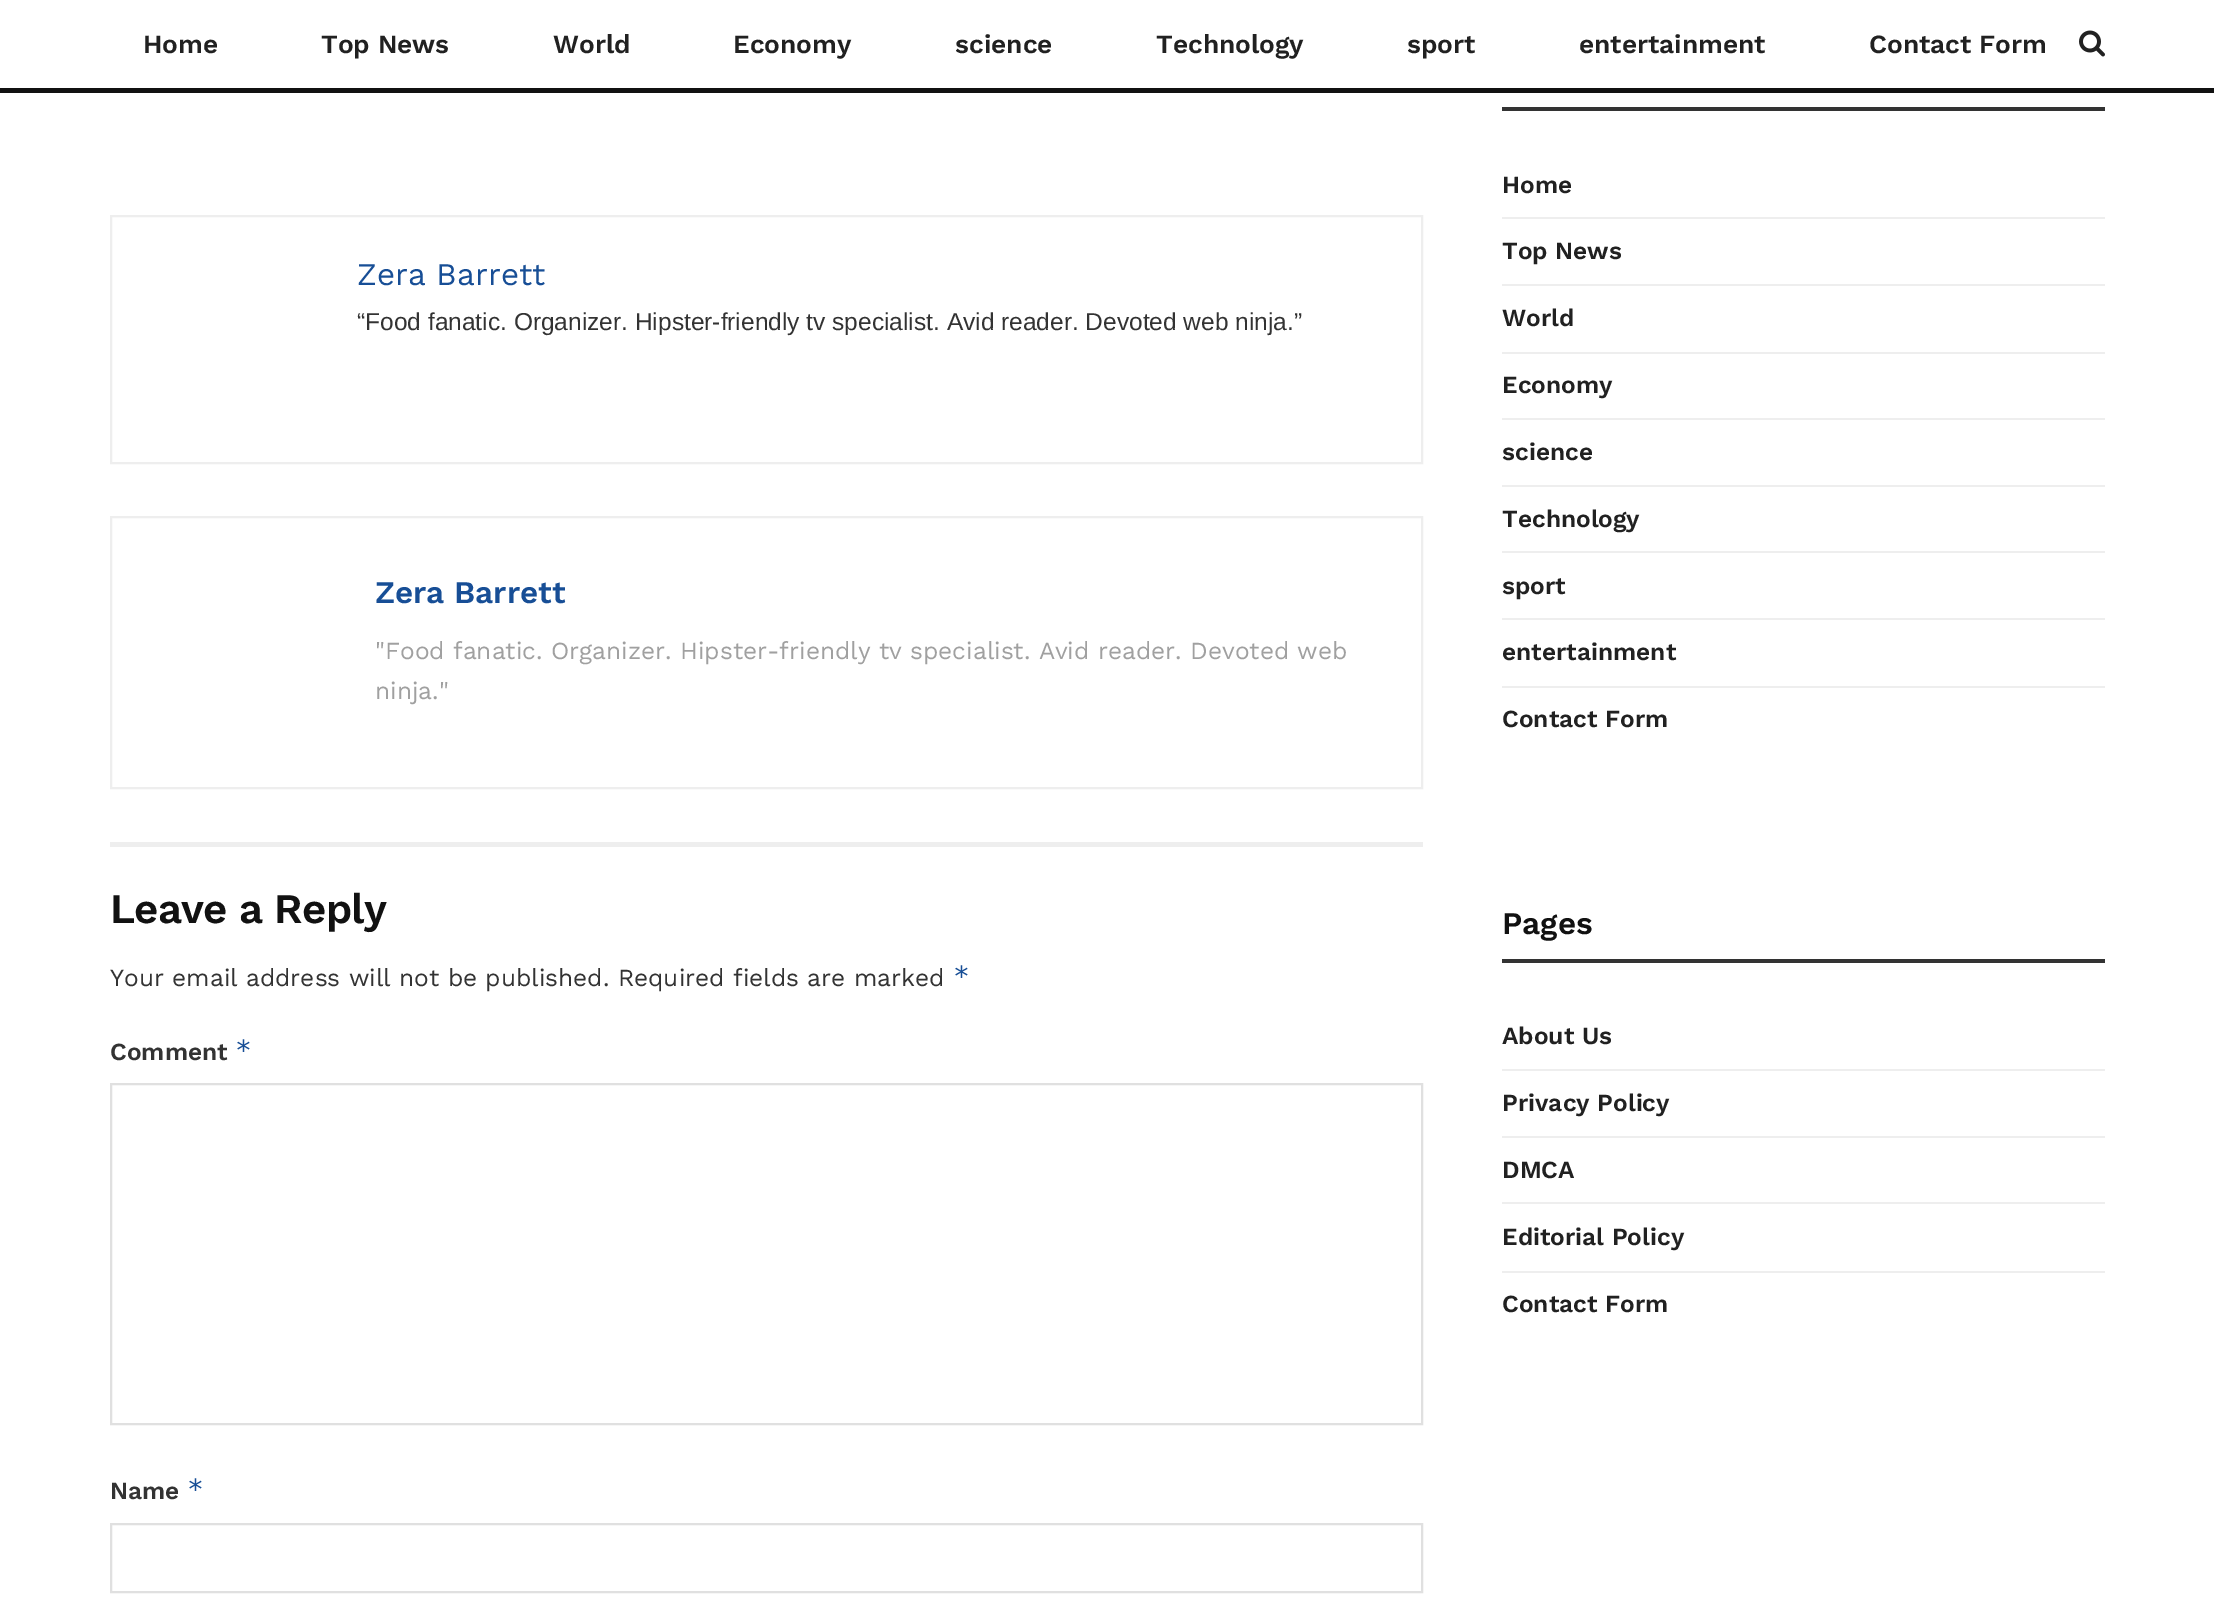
%!PS
<< /PageSize [2214 1618] >> setpagedevice
/rgb { 3 { 255 div 3 1 roll } repeat setrgbcolor } def
/font { [ exch dup neg 0 0 3 -1 roll 0 0 ] selectfont } def
/text { moveto show } def
/picture { 5 dict begin { /h /w /y /x /name } { exch def } forall
  gsave x y translate w h scale
  w h 8 [w 0 0 h 0 0] name (r) file false 3 colorimage grestore end } def
0 1618 translate 1 -1 scale
4 setmiterlimit
255 255 255 rgb
0 0 2214 1618 rectfill
17 17 17 rgb
0 88 2214 5 rectfill
(img_01.rgb) 2079 30 26 27 picture
238 238 238 rgb
2 setlinewidth
111 216 1311 247 rectstroke
111 517 1311 271 rectstroke
110 842 1313 5 rectfill
224 224 224 rgb
111 1084 1311 340 rectstroke
111 1524 1311 68 rectstroke
51 51 51 rgb
1502 107 603 4 rectfill
238 238 238 rgb
1502 217 603 2 rectfill
1502 284 603 2 rectfill
1502 352 603 2 rectfill
1502 418 603 2 rectfill
1502 485 603 2 rectfill
1502 551 603 2 rectfill
1502 618 603 2 rectfill
1502 686 603 2 rectfill
51 51 51 rgb
1502 959 603 4 rectfill
238 238 238 rgb
1502 1069 603 2 rectfill
1502 1136 603 2 rectfill
1502 1202 603 2 rectfill
1502 1271 603 2 rectfill
/WorkSans-SemiBold 26.25 font
33 33 33 rgb
(Home) 143 53 text
(Top News) 321 53 text
(World) 553 53 text
(Economy) 733 53 text
(science) 955 53 text
(Technology) 1156 53 text
(sport) 1407 53 text
(entertainment) 1579 53 text
(Contact Form) 1869 53 text
/WorkSans-Regular 31.5 font
23 78 150 rgb
(Zera Barrett) 357 285 text
/LiberationSans-Regular 24.5 font
51 51 51 rgb
(“Food fanatic. Organizer. Hipster-friendly tv specialist. Avid reader. Devoted web ninja.”) 357 330 text
/WorkSans-SemiBold 31.5 font
23 78 150 rgb
(Zera Barrett) 375 603 text
/WorkSans-Regular 24.5 font
160 160 160 rgb
("Food fanatic. Organizer. Hipster-friendly tv specialist. Avid reader. Devoted web) 375 659 text
(ninja.") 375 699 text
/WorkSans-SemiBold 42 font
17 17 17 rgb
110 923 moveto -0.8 0 (Leave a Reply) ashow
/WorkSans-Regular 24.5 font
51 51 51 rgb
(Your email address will not be published. Required fields are marked) 110 986 text
/DejaVuSansMono-Regular 28 font
23 78 150 rgb
(*) 953 986 text
/WorkSans-SemiBold 24.5 font
51 51 51 rgb
(Comment) 110 1060 text
/DejaVuSansMono-Regular 28 font
23 78 150 rgb
(*) 235 1060 text
/WorkSans-SemiBold 24.5 font
51 51 51 rgb
(Name) 110 1499 text
/DejaVuSansMono-Regular 28 font
23 78 150 rgb
(*) 187 1499 text
/WorkSans-SemiBold 24.5 font
33 33 33 rgb
(Home) 1502 193 text
(Top News) 1502 259 text
(World) 1502 326 text
(Economy) 1502 393 text
(science) 1502 460 text
(Technology) 1502 527 text
(sport) 1502 594 text
(entertainment) 1502 660 text
(Contact Form) 1502 727 text
/WorkSans-SemiBold 31.5 font
17 17 17 rgb
(Pages) 1502 934 text
/WorkSans-SemiBold 24.5 font
33 33 33 rgb
(About Us) 1502 1044 text
(Privacy Policy) 1502 1111 text
(DMCA) 1502 1178 text
(Editorial Policy) 1502 1245 text
(Contact Form) 1502 1312 text
showpage
